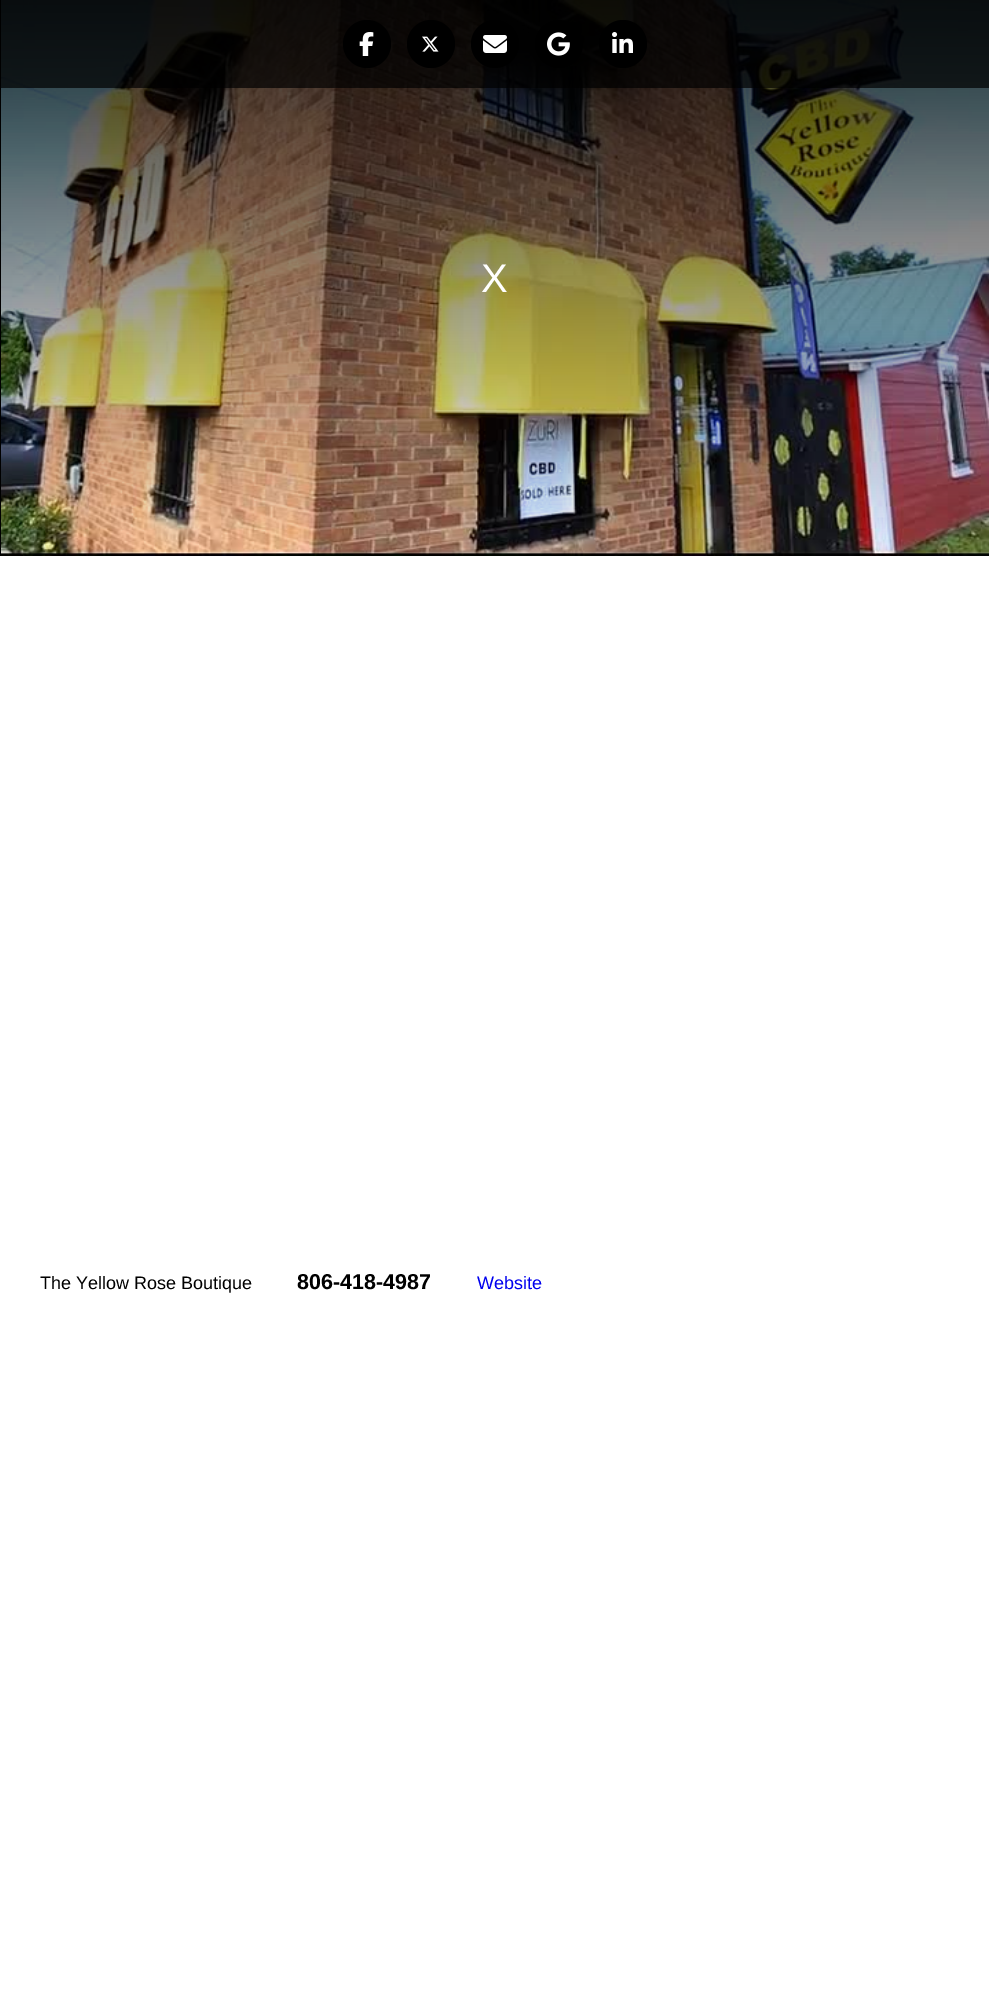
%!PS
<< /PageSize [989 2008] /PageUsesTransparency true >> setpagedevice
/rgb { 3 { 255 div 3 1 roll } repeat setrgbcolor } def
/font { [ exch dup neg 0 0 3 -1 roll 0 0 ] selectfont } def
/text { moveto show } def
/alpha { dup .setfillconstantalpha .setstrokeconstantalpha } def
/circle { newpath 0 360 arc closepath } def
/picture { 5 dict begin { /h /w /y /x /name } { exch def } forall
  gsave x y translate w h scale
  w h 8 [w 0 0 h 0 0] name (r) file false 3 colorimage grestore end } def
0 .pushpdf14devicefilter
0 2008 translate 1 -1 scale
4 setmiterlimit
255 255 255 rgb
0 0 989 2008 rectfill
(img_06.rgb) 1 0 988 556 picture
0.7 alpha
0 0 0 rgb
1 0 988 88 rectfill
1 alpha
367 44 24 circle fill
(img_01.rgb) 359 32 15 24 picture
431 44 24 circle fill
(img_02.rgb) 422 36 17 16 picture
495 44 24 circle fill
(img_03.rgb) 483 35 24 18 picture
559 44 24 circle fill
(img_04.rgb) 547 32 23 24 picture
623 44 24 circle fill
(img_05.rgb) 612 32 21 21 picture
0 0 1 556 rectfill
/LiberationSans-Regular 40 font
255 255 255 rgb
(X) 481 292 text
/LiberationSans-Regular 18 font
0 0 0 rgb
(The Yellow Rose Boutique) 40 1289 text
/LiberationSans-Bold 21.5 font
(806-418-4987) 297 1289 text
/LiberationSans-Regular 18 font
0 0 238 rgb
(Website) 477 1289 text
.poppdf14devicefilter showpage
